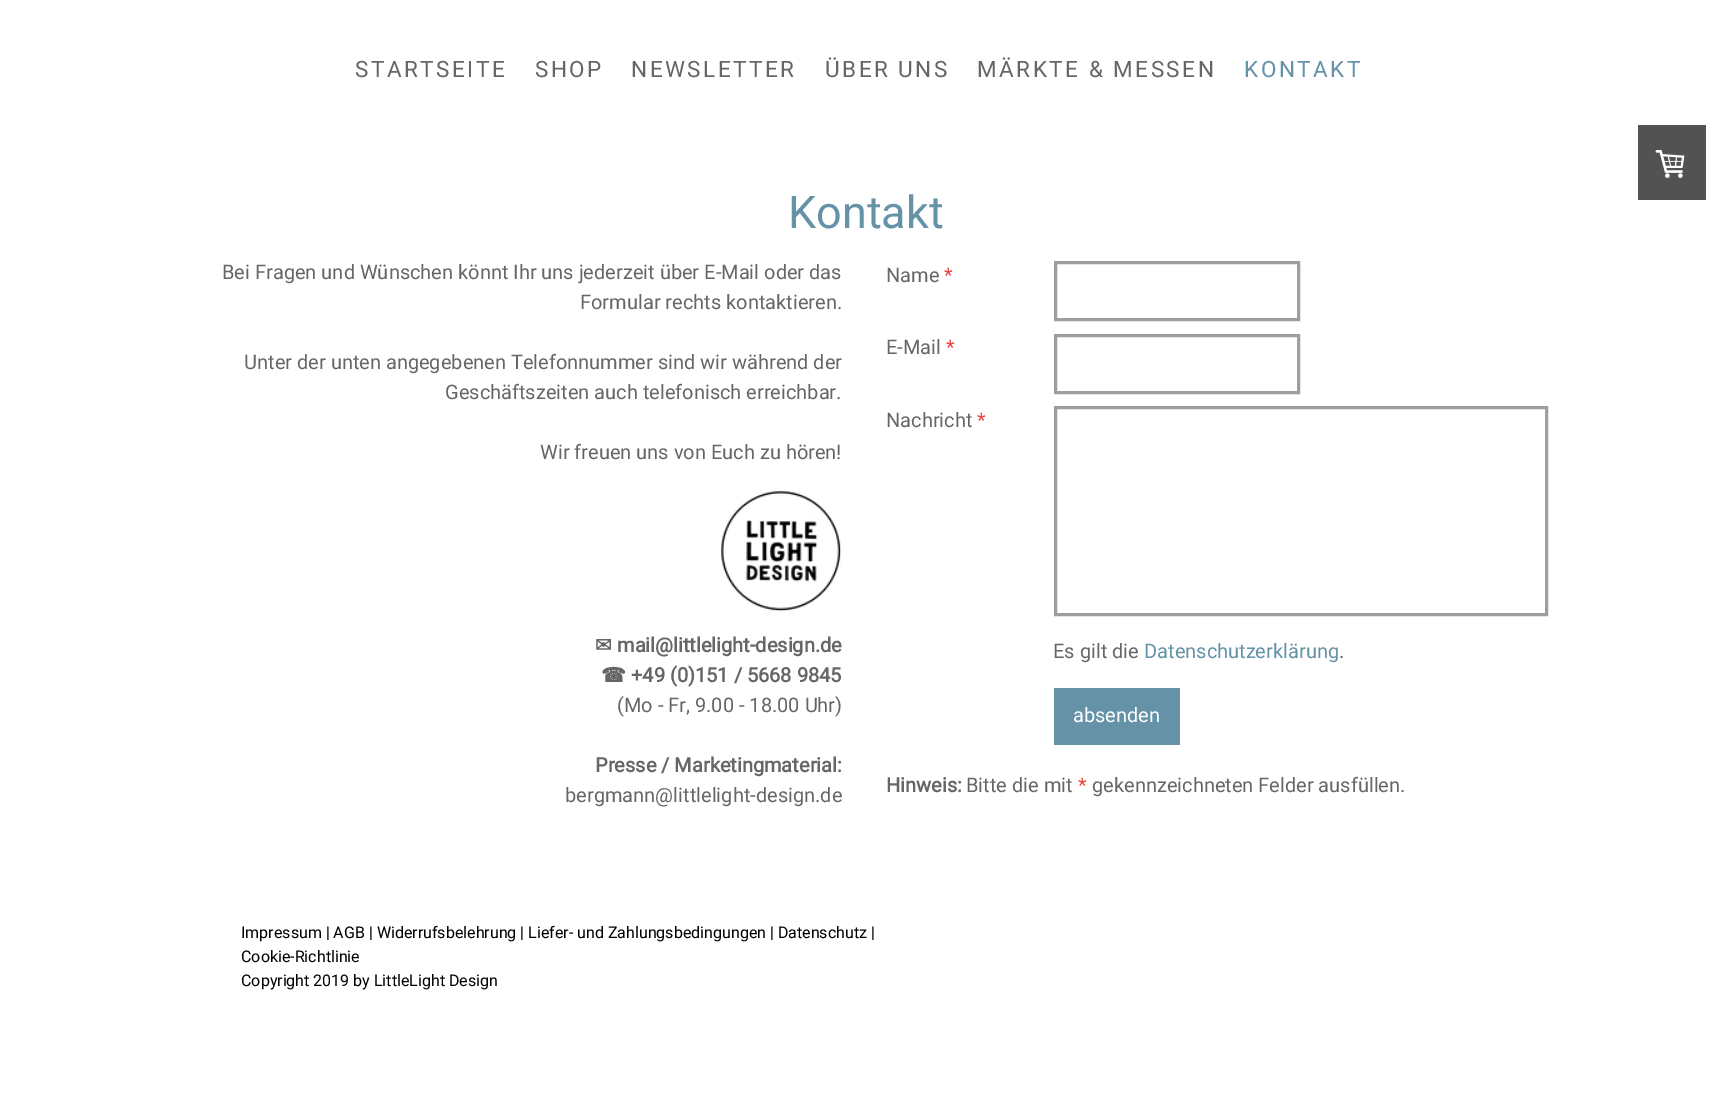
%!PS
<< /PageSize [1731 1104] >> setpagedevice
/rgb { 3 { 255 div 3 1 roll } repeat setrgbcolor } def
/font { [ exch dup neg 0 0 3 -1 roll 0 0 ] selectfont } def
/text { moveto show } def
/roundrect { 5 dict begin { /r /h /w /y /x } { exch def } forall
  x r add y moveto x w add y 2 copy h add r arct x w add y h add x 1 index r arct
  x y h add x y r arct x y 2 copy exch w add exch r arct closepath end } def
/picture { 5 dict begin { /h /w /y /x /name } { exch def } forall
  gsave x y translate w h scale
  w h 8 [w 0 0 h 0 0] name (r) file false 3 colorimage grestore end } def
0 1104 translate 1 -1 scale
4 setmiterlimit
255 255 255 rgb
0 0 1731 1104 rectfill
82 82 82 rgb
1638 125 68 75 1 roundrect fill
(img_01.rgb) 1655 150 30 28 picture
(img_02.rgb) 721 491 120 121 picture
157 158 158 rgb
3 setlinewidth
1055.5 262.5 243 57 rectstroke
1055.5 335.5 243 57 rectstroke
1055.5 407.5 491 207 rectstroke
101 146 167 rgb
1054 688 126 57 rectfill
/Roboto-Regular 22.5 font
102 102 102 rgb
355 77 moveto 2.5 0 (STARTSEITE) ashow
535 77 moveto 2.5 0 (SHOP) ashow
631 77 moveto 2.5 0 (NEWSLETTER) ashow
825 77 moveto 2.5 0 (ÜBER UNS) ashow
977 77 moveto 2.5 0 (MÄRKTE & MESSEN) ashow
101 146 167 rgb
1244 77 moveto 2.5 0 (KONTAKT) ashow
/Roboto-Regular 45 font
(Kontakt) 788 228 text
/Roboto-Regular 20 font
102 102 102 rgb
(Bei Fragen und Wünschen könnt Ihr uns jederzeit über E-Mail oder das) 222 279 text
(Formular rechts kontaktieren.) 580 309 text
(Unter der unten angegebenen Telefonnummer sind wir während der) 244 369 text
(Geschäftszeiten auch telefonisch erreichbar.) 445 399 text
(Wir freuen uns von Euch zu hören!) 540 459 text
/DejaVuSans-Bold 20 font
(✉) 595 652 text
/Roboto-Bold 20 font
(mail@littlelight-design.de) 617 652 text
/DejaVuSans-Bold 20 font
(☎) 601 682 text
/Roboto-Bold 20 font
(+49 \(0\)151 / 5668 9845) 631 682 text
/Roboto-Regular 20 font
(\(Mo - Fr, 9.00 - 18.00 Uhr\)) 617 712 text
/Roboto-Bold 20 font
(Presse / Marketingmaterial:) 595 772 text
/Roboto-Regular 20 font
(bergmann@littlelight-design.de) 565 802 text
(Name) 886 282 text
235 67 62 rgb
(*) 944 282 text
102 102 102 rgb
(E-Mail) 886 354 text
235 67 62 rgb
(*) 946 354 text
102 102 102 rgb
(Nachricht) 886 427 text
235 67 62 rgb
(*) 977 427 text
102 102 102 rgb
(Es gilt die) 1053 658 text
101 146 167 rgb
(Datenschutzerklärung) 1144 658 text
102 102 102 rgb
(.) 1339 658 text
255 255 255 rgb
(absenden) 1073 722 text
/Roboto-Bold 20 font
102 102 102 rgb
(Hinweis:) 886 792 text
/Roboto-Regular 20 font
(Bitte die mit) 966 792 text
235 67 62 rgb
(*) 1078 792 text
102 102 102 rgb
(gekennzeichneten Felder ausfüllen.) 1092 792 text
/Roboto-Regular 16 font
0 0 0 rgb
(Impressum | AGB | Widerrufsbelehrung | Liefer- und Zahlungsbedingungen | Datenschutz |) 241 938 text
(Cookie-Richtlinie) 241 962 text
(Copyright 2019 by LittleLight Design) 241 986 text
showpage
